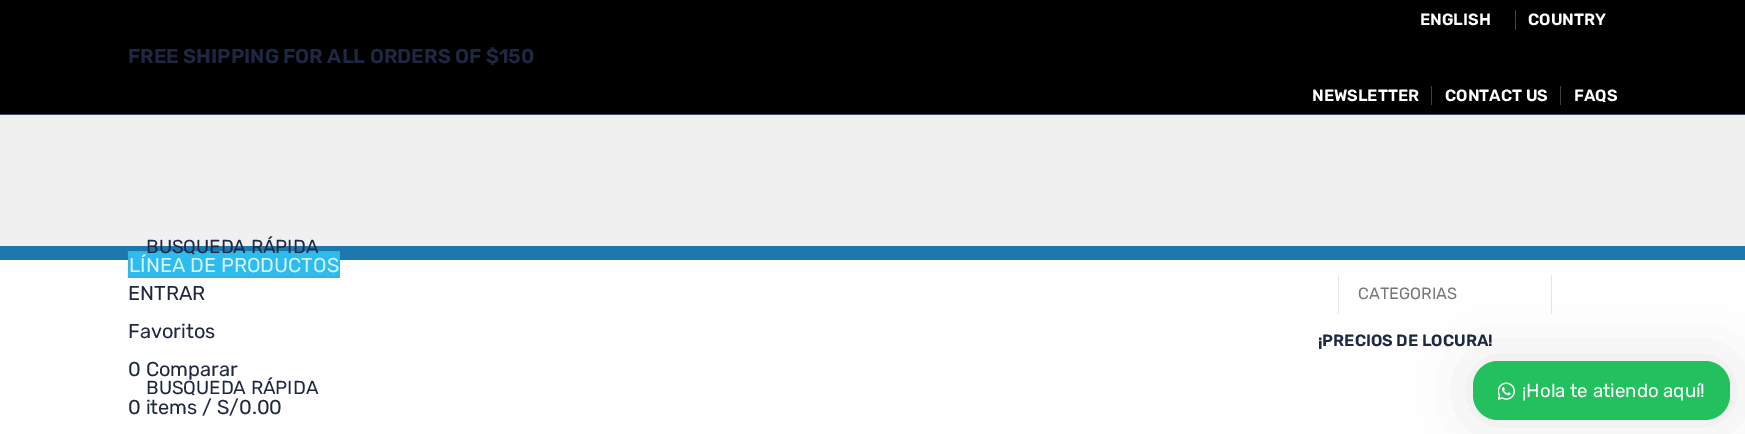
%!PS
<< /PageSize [1745 434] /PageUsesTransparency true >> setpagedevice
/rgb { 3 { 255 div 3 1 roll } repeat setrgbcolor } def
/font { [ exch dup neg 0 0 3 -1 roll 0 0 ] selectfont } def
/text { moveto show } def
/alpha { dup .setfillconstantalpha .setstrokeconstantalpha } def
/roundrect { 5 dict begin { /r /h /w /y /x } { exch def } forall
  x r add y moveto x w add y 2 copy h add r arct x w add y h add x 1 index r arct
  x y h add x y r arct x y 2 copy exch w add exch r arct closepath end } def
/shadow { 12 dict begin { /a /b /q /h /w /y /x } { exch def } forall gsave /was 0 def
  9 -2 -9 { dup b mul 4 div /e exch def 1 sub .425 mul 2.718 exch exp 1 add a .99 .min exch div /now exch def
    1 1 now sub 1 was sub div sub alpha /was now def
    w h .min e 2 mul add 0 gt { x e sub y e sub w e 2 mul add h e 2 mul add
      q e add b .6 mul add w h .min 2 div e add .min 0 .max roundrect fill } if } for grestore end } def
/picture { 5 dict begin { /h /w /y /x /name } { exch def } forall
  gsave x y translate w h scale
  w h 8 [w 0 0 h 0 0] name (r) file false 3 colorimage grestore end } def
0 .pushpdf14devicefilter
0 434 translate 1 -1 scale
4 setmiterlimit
0 0 0 rgb
0 0 1745 434 rectfill
58 77 105 rgb
0 114 1745 1 rectfill
64 64 64 rgb
1515 10 1 20 rectfill
1431 86 1 19 rectfill
1560 86 1 19 rectfill
240 240 240 rgb
0 115 1745 131 rectfill
255 255 255 rgb
0 260 1745 174 rectfill
230 230 230 rgb
1551 275 1 39 rectfill
1338 275 1 39 rectfill
29 120 173 rgb
0 246 1745 14 rectfill
45 188 238 rgb
128 251 212 27 rectfill
62 176 216 rgb
127.5 251 moveto 1.5 0 rlineto 0 1.5 rlineto closepath 129 277.5 moveto -1.5 0 rlineto 1.5 -1.5 rlineto closepath fill
0.2 alpha
129 129 129 rgb
127.5 277.5 moveto 0 -26.5 rlineto 1.5 1.5 rlineto 0 23.5 rlineto closepath fill
1 alpha
62 176 216 rgb
129 251 moveto 211 0 rlineto -1 1 rlineto -210 0 rlineto closepath fill
340 251 moveto 0 26.5 rlineto -1 -1.5 rlineto 0 -23.5 rlineto closepath fill
340 278 moveto -211 0 rlineto 0 -2 rlineto 210 0 rlineto closepath fill
0 0 0 rgb
1473 361 257 59 25 31 0.1 shadow
34 193 94 rgb
1473 361 257 59 25 roundrect fill
(img_01.rgb) 1498 382 17 18 picture
/Rubik-SemiBold 16.25 font
255 255 255 rgb
(ENGLISH) 1420 25 text
(COUNTRY) 1528 25 text
/Rubik-SemiBold 20 font
30 40 67 rgb
(FREE SHIPPING FOR ALL ORDERS OF $150) 128 63 text
/Rubik-SemiBold 16.25 font
255 255 255 rgb
(NEWSLETTER) 1312 101 text
(CONTACT US) 1445 101 text
(FAQS) 1574 101 text
/Rubik-Regular 18.75 font
30 40 67 rgb
(BUSQUEDA RÁPIDA) 146 253 text
/Rubik-Regular 16.25 font
119 119 119 rgb
(CATEGORIAS) 1358 299 text
/Rubik-Regular 20 font
30 40 67 rgb
(ENTRAR) 128 300 text
(Favoritos) 128 338 text
(0 Comparar) 128 376 text
(0 items / S/0.00) 128 414 text
213 242 252 rgb
(LÍNEA DE PRODUCTOS) 129 272 text
/Rubik-SemiBold 16.25 font
30 40 67 rgb
(¡PRECIOS DE LOCURA!) 1318 346 text
/Rubik-Regular 18.75 font
(BUSQUEDA RÁPIDA) 146 394 text
255 255 255 rgb
(¡Hola te atiendo aquí!) 1522 397 text
.poppdf14devicefilter showpage
